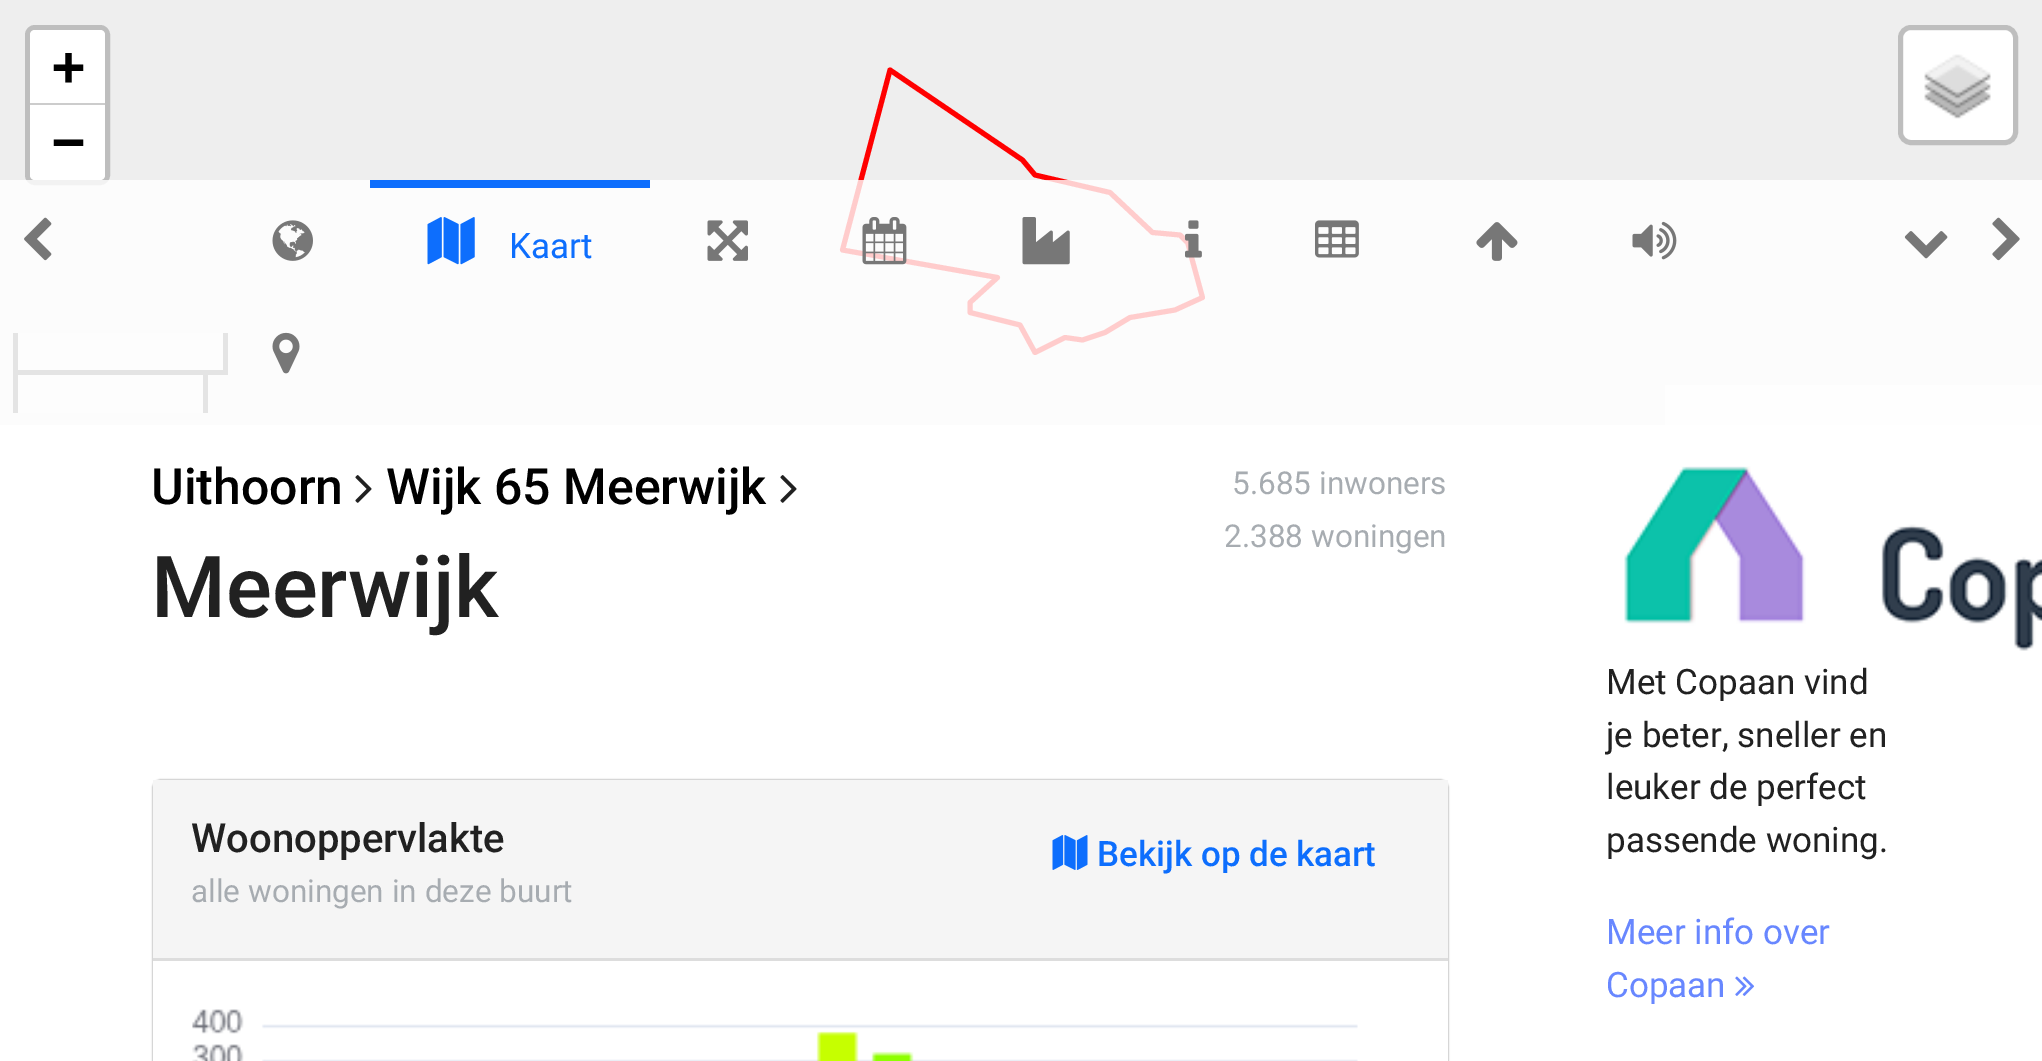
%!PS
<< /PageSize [2042 1061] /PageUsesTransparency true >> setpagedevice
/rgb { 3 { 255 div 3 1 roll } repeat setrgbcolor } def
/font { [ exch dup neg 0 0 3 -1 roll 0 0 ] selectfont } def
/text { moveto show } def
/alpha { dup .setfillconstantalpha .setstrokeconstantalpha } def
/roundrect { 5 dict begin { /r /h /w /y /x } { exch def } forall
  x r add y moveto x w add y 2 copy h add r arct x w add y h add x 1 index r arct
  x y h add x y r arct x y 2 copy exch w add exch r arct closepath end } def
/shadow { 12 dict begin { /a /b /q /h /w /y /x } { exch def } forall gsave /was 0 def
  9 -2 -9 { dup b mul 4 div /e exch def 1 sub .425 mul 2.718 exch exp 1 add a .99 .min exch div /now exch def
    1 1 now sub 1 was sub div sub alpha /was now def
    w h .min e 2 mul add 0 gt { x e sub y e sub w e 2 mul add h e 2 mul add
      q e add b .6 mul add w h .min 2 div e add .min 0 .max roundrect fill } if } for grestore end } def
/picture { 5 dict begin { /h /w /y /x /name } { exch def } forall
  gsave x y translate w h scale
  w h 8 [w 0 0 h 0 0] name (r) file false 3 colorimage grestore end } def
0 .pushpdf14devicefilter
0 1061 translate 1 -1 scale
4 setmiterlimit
255 255 255 rgb
0 0 2042 1061 rectfill
238 238 238 rgb
0 0 2042 425 rectfill
247 247 247 rgb
18 375 185 38 rectfill
190 190 190 rgb
5 setlinewidth
27.5 27.5 80 155 7.5 roundrect stroke
255 255 255 rgb
35 30 moveto 65 0 rlineto 3 0 5 2 5 5 rcurveto 0 70 rlineto -75 0 rlineto 0 -70 rlineto 0 -3 2 -5 5 -5 rcurveto closepath fill
204 204 204 rgb
30 103 75 2 rectfill
255 255 255 rgb
30 105 moveto 75 0 rlineto 0 70 rlineto 0 3 -2 5 -5 5 rcurveto -65 0 rlineto -3 0 -5 -2 -5 -5 rcurveto closepath fill
1903 30 110 110 8 roundrect fill
0.2 alpha
0 0 0 rgb
1900.5 27.5 115 115 10.5 roundrect stroke
1 alpha
(img_01.rgb) 1924 54 67 65 picture
247 247 247 rgb
18 333 205 37 rectfill
119 119 119 rgb
223 333 5 42 rectfill
208 370 20 5 rectfill
13 333 5 42 rectfill
13 370 195 5 rectfill
203 370 5 43 rectfill
13 370 5 43 rectfill
250 250 250 rgb
1665 385 377 40 rectfill
255 0 0 rgb
1 setlinecap
1 setlinejoin
1187.5 242.5 moveto -7.5 -7.5 rlineto -27.5 -2.5 rlineto -42.5 -40 rlineto -75 -17.5 rlineto -12.5 -15 rlineto -132.5 -90 rlineto -47.5 180 rlineto 155 27.5 rlineto -27.5 25 rlineto 0 10 rlineto 50 12.5 rlineto 15 27.5 rlineto 30 -15 rlineto 17.5 2.5 rlineto 22.5 -7.5 rlineto 25 -15 rlineto 45 -7.5 rlineto 27.5 -12.5 rlineto closepath stroke
0.8 alpha
255 255 255 rgb
0 180 2042 245 rectfill
1 alpha
(img_02.rgb) 24 217 28 44 picture
(img_03.rgb) 272 220 41 41 picture
13 110 253 rgb
370 180 280 8 rectfill
(img_04.rgb) 427 217 48 48 picture
(img_05.rgb) 707 220 41 41 picture
(img_06.rgb) 862 217 45 48 picture
(img_07.rgb) 1022 217 48 48 picture
(img_08.rgb) 1185 220 17 38 picture
(img_09.rgb) 1315 220 44 38 picture
(img_10.rgb) 1476 222 42 39 picture
(img_11.rgb) 1632 221 45 39 picture
(img_12.rgb) 272 332 28 42 picture
(img_13.rgb) 1904 231 44 28 picture
(img_14.rgb) 1992 217 28 44 picture
(img_15.rgb) 355 475 17 28 picture
(img_15.rgb) 780 475 17 28 picture
0 0 0 rgb
153 780 1295 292 8 1 0.5 shadow
255 255 255 rgb
153 961 1295 100 rectfill
245 245 245 rgb
153 780 1295 178 rectfill
221 221 221 rgb
153 958 1295 3 rectfill
(img_16.rgb) 1052 835 36 35 picture
(img_17.rgb) 192 1009 1166 52 picture
(img_18.rgb) 1624 466 418 185 picture
(img_19.rgb) 1735 976 20 20 picture
/DejaVuSansMono-Bold 55 font
0 0 0 rgb
(+) 52 85 text
(−) 52 160 text
/Roboto-Regular 35 font
13 110 253 rgb
(Kaart) 509 258 text
/Roboto-Medium 50 font
0 0 0 rgb
(Uithoorn) 151 504 text
(Wijk 65 Meerwijk) 386 504 text
/Roboto-Regular 31.5 font
167 172 177 rgb
(5.685 inwoners) 1232 494 text
(2.388 woningen) 1224 547 text
/Roboto-Medium 85.5 font
33 33 33 rgb
(Meerwijk) 151 617 text
/Roboto-Medium 40 font
(Woonoppervlakte) 191 852 text
/Roboto-Medium 35 font
13 110 253 rgb
(Bekijk op de kaart) 1097 866 text
/Roboto-Regular 31.5 font
167 172 177 rgb
(alle woningen in deze buurt) 191 902 text
/Roboto-Regular 35 font
33 33 33 rgb
(Met Copaan vind) 1606 694 text
(je beter, sneller en) 1606 747 text
(leuker de perfect) 1606 799 text
(passende woning.) 1606 852 text
104 135 255 rgb
(Meer info over) 1606 944 text
(Copaan) 1606 997 text
.poppdf14devicefilter showpage
